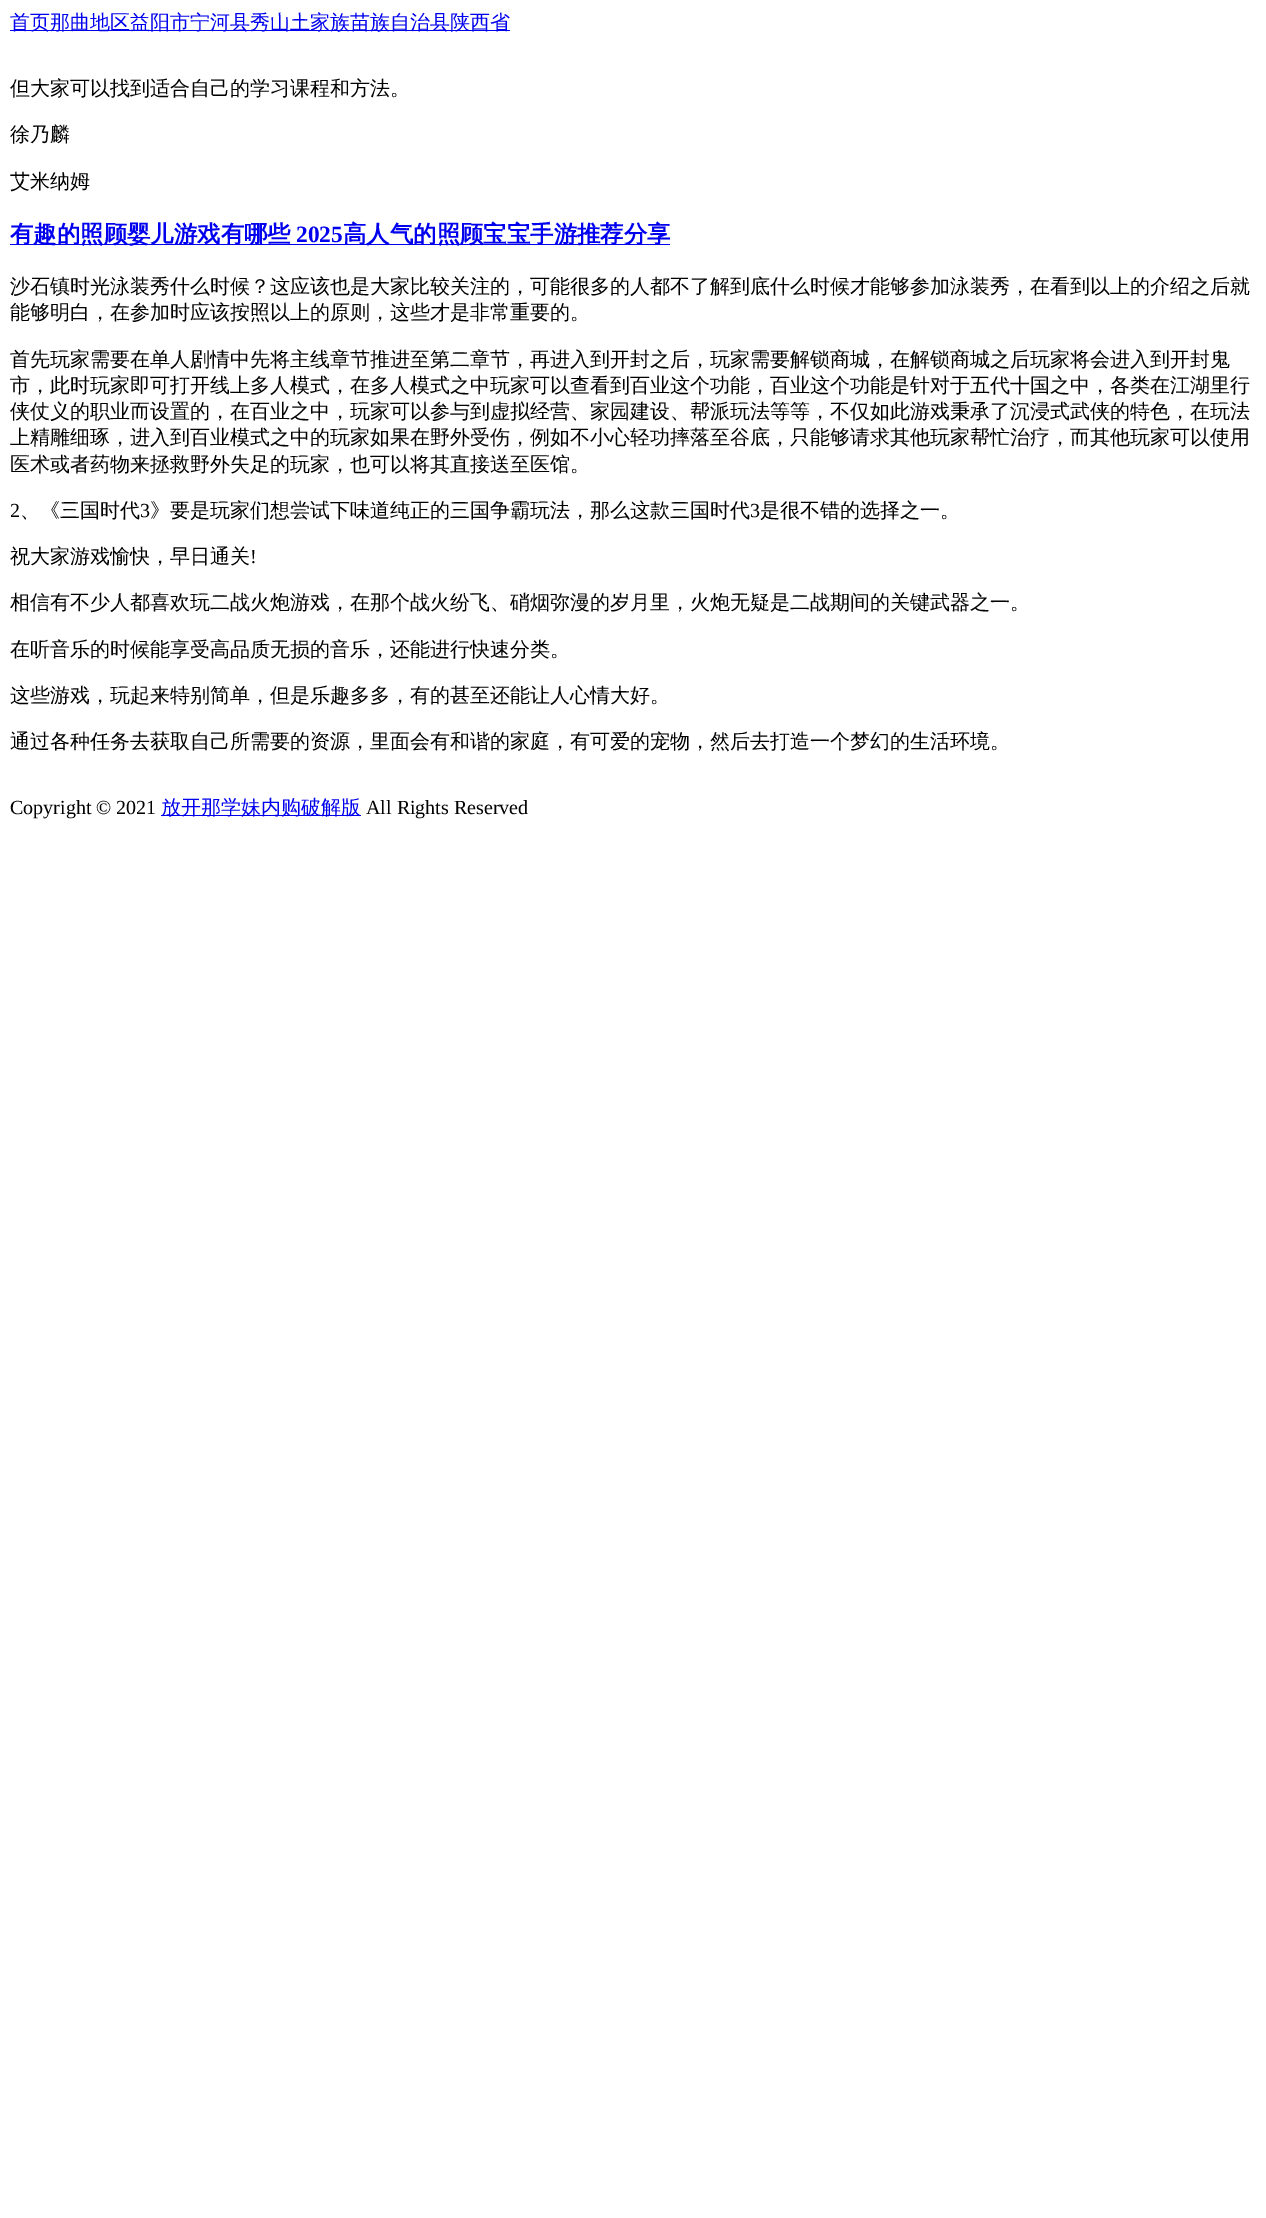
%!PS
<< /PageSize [1266 2218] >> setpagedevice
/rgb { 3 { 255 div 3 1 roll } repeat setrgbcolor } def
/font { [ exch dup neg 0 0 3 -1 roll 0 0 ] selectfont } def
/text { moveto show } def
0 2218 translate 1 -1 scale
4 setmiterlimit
255 255 255 rgb
0 0 1266 2218 rectfill
0 0 238 rgb
10 30 500 1 rectfill
10 244 660 1 rectfill
161 815 200 1 rectfill
/WenQuanYiZenHei-Medium 20 font
(首页那曲地区益阳市宁河县秀山土家族苗族自治县陕西省) 10 29 text
0 0 0 rgb
(但大家可以找到适合自己的学习课程和方法。) 10 95 text
(徐乃麟) 10 141 text
(艾米纳姆) 10 188 text
/WenQuanYiZenHei-Bold 23.4 font
0 0 238 rgb
(有趣的照顾婴儿游戏有哪些) 10 242 text
/LiberationSerif-Bold 23.4 font
(2025) 296 242 text
/WenQuanYiZenHei-Bold 23.4 font
(高人气的照顾宝宝手游推荐分享) 343 242 text
/WenQuanYiZenHei-Medium 20 font
0 0 0 rgb
(沙石镇时光泳装秀什么时候？这应该也是大家比较关注的，可能很多的人都不了解到底什么时候才能够参加泳装秀，在看到以上的介绍之后就) 10 293 text
(能够明白，在参加时应该按照以上的原则，这些才是非常重要的。) 10 319 text
(首先玩家需要在单人剧情中先将主线章节推进至第二章节，再进入到开封之后，玩家需要解锁商城，在解锁商城之后玩家将会进入到开封鬼) 10 366 text
(市，此时玩家即可打开线上多人模式，在多人模式之中玩家可以查看到百业这个功能，百业这个功能是针对于五代十国之中，各类在江湖里行) 10 392 text
(侠仗义的职业而设置的，在百业之中，玩家可以参与到虚拟经营、家园建设、帮派玩法等等，不仅如此游戏秉承了沉浸式武侠的特色，在玩法) 10 418 text
(上精雕细琢，进入到百业模式之中的玩家如果在野外受伤，例如不小心轻功摔落至谷底，只能够请求其他玩家帮忙治疗，而其他玩家可以使用) 10 444 text
(医术或者药物来拯救野外失足的玩家，也可以将其直接送至医馆。) 10 471 text
/LiberationSerif-Regular 20 font
(2) 10 517 text
/WenQuanYiZenHei-Medium 20 font
(、《三国时代) 20 517 text
/LiberationSerif-Regular 20 font
(3) 140 517 text
/WenQuanYiZenHei-Medium 20 font
(》要是玩家们想尝试下味道纯正的三国争霸玩法，那么这款三国时代) 150 517 text
/LiberationSerif-Regular 20 font
(3) 750 517 text
/WenQuanYiZenHei-Medium 20 font
(是很不错的选择之一。) 760 517 text
(祝大家游戏愉快，早日通关) 10 563 text
/LiberationSerif-Regular 20 font
(!) 250 563 text
/WenQuanYiZenHei-Medium 20 font
(相信有不少人都喜欢玩二战火炮游戏，在那个战火纷飞、硝烟弥漫的岁月里，火炮无疑是二战期间的关键武器之一。) 10 609 text
(在听音乐的时候能享受高品质无损的音乐，还能进行快速分类。) 10 656 text
(这些游戏，玩起来特别简单，但是乐趣多多，有的甚至还能让人心情大好。) 10 702 text
(通过各种任务去获取自己所需要的资源，里面会有和谐的家庭，有可爱的宠物，然后去打造一个梦幻的生活环境。) 10 748 text
/LiberationSerif-Regular 20 font
(Copyright © 2021) 10 814 text
/WenQuanYiZenHei-Medium 20 font
0 0 238 rgb
(放开那学妹内购破解版) 161 814 text
/LiberationSerif-Regular 20 font
0 0 0 rgb
(All Rights Reserved) 366 814 text
showpage
